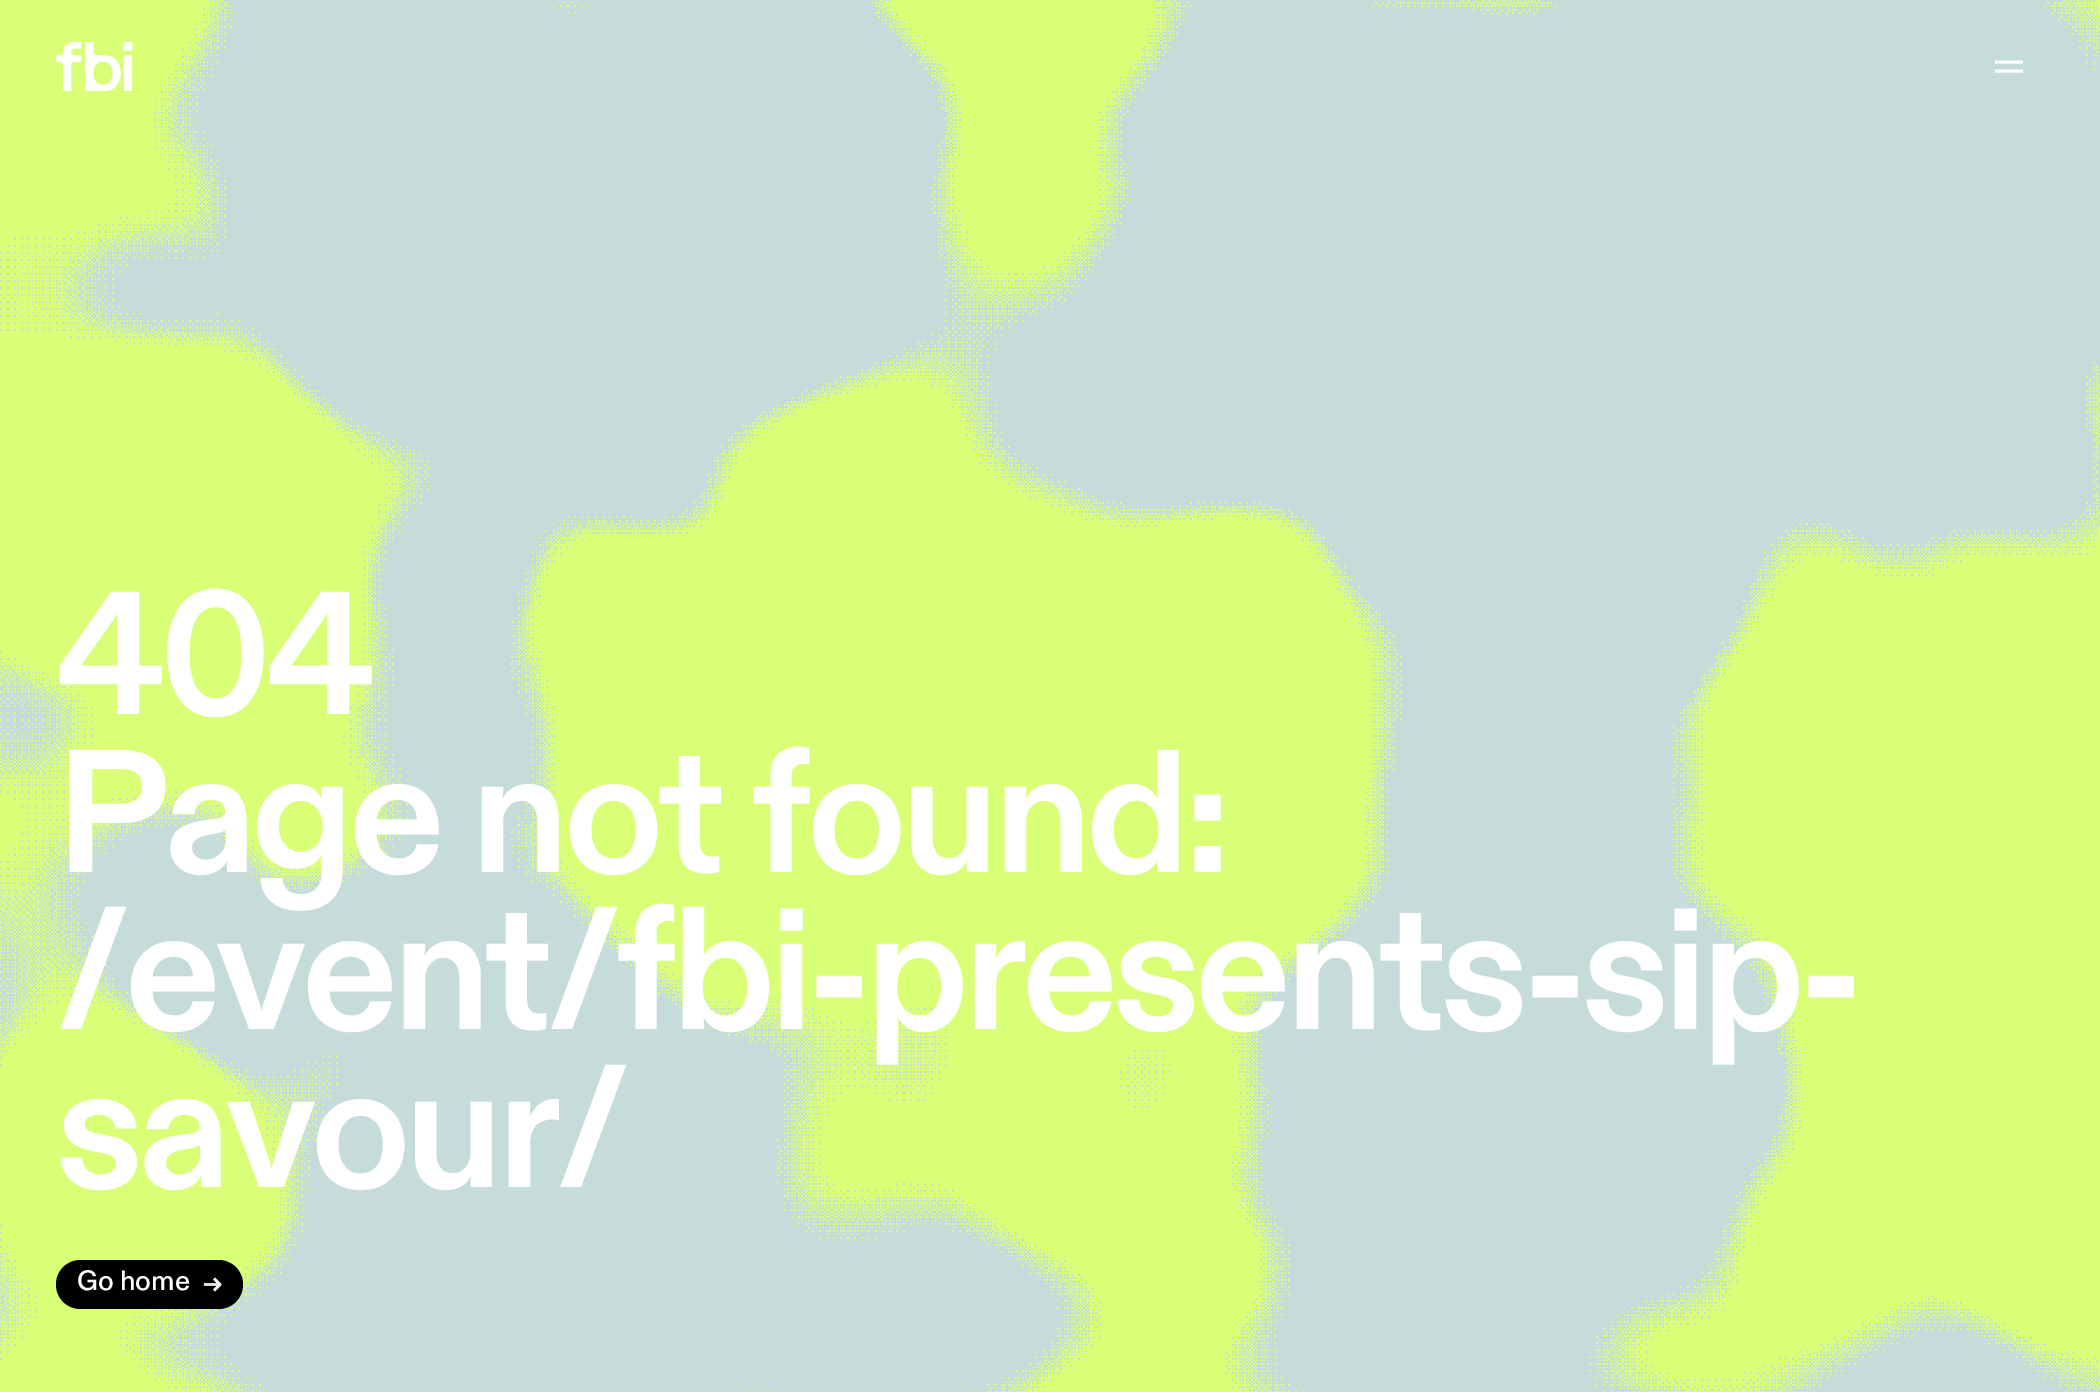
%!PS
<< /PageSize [2100 1392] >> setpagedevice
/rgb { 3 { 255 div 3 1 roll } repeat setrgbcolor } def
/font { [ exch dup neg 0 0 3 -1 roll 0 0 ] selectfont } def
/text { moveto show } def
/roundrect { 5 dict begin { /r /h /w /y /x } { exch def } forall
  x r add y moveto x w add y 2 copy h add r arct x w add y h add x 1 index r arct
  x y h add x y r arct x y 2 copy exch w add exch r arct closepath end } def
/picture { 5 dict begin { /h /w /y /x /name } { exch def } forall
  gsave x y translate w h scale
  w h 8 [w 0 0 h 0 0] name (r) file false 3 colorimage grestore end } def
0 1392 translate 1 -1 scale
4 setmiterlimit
255 255 255 rgb
0 0 2100 1392 rectfill
(img_01.rgb) 0 0 2100 1392 picture
(img_02.rgb) 56 42 77 49 picture
3.1 setlinewidth
1995 62 moveto 28 0 rlineto 1995 71 moveto 28 0 rlineto stroke
0 0 0 rgb
56 1260 187 49 24.5 roundrect fill
221 221 221 rgb
204 1283 16 3 rectfill
255 255 255 rgb
2.6 setlinewidth
1 setlinejoin
214 1278.5 moveto 6 6 rlineto -6 6 rlineto stroke
/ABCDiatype-Bold 175 font
56 714 moveto -5.25 0 (404) ashow
56 872 moveto -5.25 0 (Page not found:) ashow
56 1029 moveto -5.25 0 (/event/fbi-presents-sip-) ashow
56 1187 moveto -5.25 0 (savour/) ashow
/ABCDiatype-Medium 28 font
(Go home) 77 1290 text
showpage
